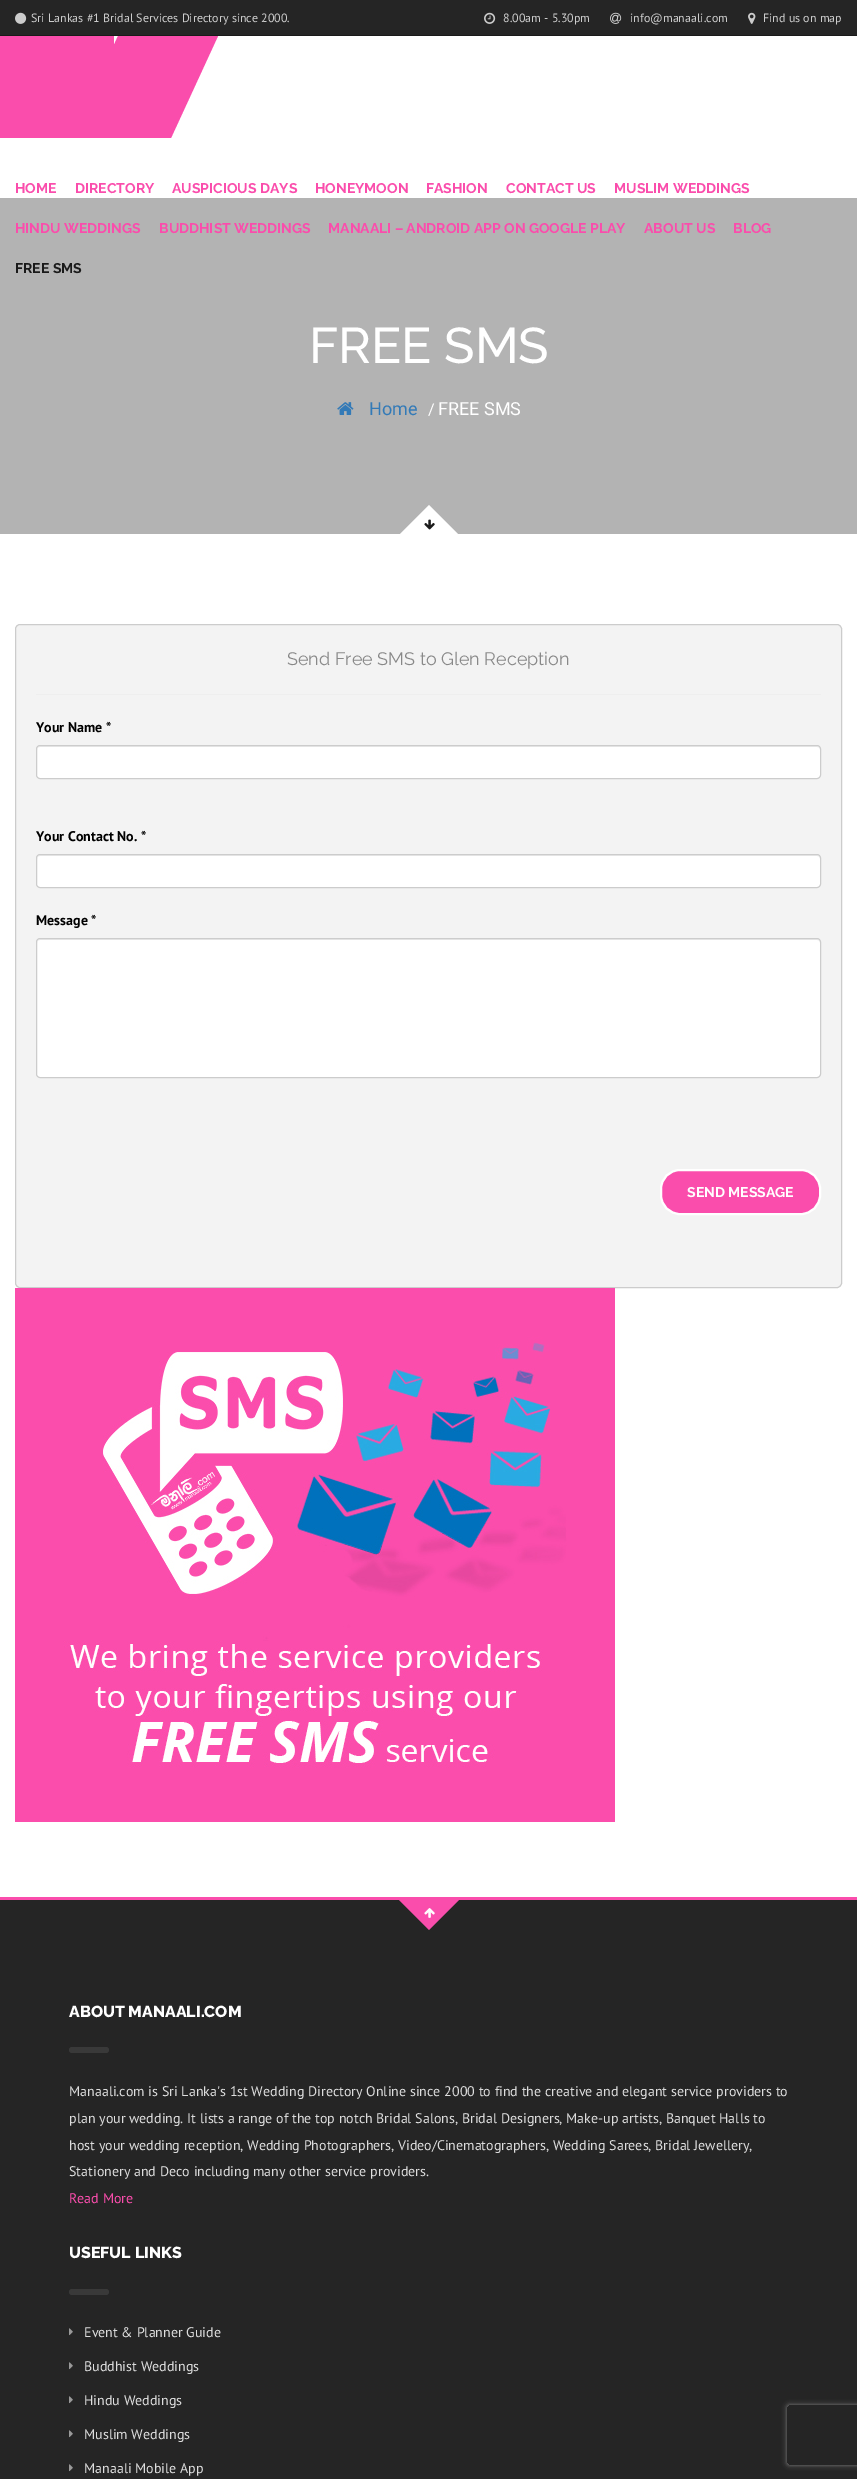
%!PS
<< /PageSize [857 2479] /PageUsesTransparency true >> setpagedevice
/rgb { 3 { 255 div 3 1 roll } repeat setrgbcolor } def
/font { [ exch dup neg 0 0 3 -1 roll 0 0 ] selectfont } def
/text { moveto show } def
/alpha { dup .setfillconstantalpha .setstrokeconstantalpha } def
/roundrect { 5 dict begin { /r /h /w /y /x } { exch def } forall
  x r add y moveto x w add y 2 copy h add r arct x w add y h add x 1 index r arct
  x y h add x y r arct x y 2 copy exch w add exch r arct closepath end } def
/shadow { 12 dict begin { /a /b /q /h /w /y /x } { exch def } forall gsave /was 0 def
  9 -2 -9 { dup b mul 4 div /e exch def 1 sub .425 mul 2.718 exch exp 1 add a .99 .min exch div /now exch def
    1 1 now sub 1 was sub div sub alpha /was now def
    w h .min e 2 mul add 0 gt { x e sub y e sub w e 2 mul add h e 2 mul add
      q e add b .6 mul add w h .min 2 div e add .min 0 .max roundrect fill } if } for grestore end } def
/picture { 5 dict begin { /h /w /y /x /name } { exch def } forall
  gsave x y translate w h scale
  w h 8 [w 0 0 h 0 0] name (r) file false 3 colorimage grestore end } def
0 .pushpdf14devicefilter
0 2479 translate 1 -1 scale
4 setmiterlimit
255 255 255 rgb
0 0 857 2479 rectfill
37 37 37 rgb
0 0 857 35 rectfill
26 26 26 rgb
0 35 857 1 rectfill
(img_01.rgb) 15 12 12 12 picture
(img_02.rgb) 484 12 12 12 picture
(img_03.rgb) 610 12 12 12 picture
(img_04.rgb) 748 12 8 12 picture
250 77 172 rgb
0 36 114 102 rectfill
118 36 moveto 100 0 rlineto -47 102 rlineto -100 0 rlineto closepath fill
179 179 179 rgb
0 198 857 336 rectfill
(img_05.rgb) 337 402 17 13 picture
255 255 255 rgb
459 535 moveto -60 0 rlineto 30 -30 rlineto closepath fill
(img_06.rgb) 424 519 11 11 picture
243 243 243 rgb
15.5 624.5 826 663 4.5 roundrect gsave fill grestore
204 204 204 rgb
stroke
238 238 238 rgb
36 694 785 1 rectfill
255 255 255 rgb
36 745 785 34 4 roundrect fill
236 236 236 rgb
40 747 moveto 777 0 rlineto 2 0 3 1 3 3 rcurveto 0 -2 -1 -4 -3 -4 rcurveto -777 0 rlineto -2 0 -3 2 -3 4 rcurveto 0 -2 1 -3 3 -3 rcurveto closepath fill
204 204 204 rgb
36.5 745.5 784 33 3.5 roundrect stroke
255 255 255 rgb
36 854 785 34 4 roundrect fill
236 236 236 rgb
40 856 moveto 777 0 rlineto 2 0 3 1 3 3 rcurveto 0 -2 -1 -4 -3 -4 rcurveto -777 0 rlineto -2 0 -3 2 -3 4 rcurveto 0 -2 1 -3 3 -3 rcurveto closepath fill
204 204 204 rgb
36.5 854.5 784 33 3.5 roundrect stroke
255 255 255 rgb
36 938 785 140 4 roundrect fill
236 236 236 rgb
40 940 moveto 777 0 rlineto 2 0 3 1 3 3 rcurveto 0 -2 -1 -4 -3 -4 rcurveto -777 0 rlineto -2 0 -3 2 -3 4 rcurveto 0 -2 1 -3 3 -3 rcurveto closepath fill
204 204 204 rgb
36.5 938.5 784 139 3.5 roundrect stroke
250 77 172 rgb
661 1170 159 44 19 roundrect gsave fill grestore
255 255 255 rgb
2 setlinewidth
stroke
(img_07.rgb) 15 1288 600 534 picture
250 77 172 rgb
0 1897 857 3 rectfill
37 37 37 rgb
0 1900 857 579 rectfill
250 77 172 rgb
399 1900 moveto 60 0 rlineto -30 30 rlineto closepath fill
(img_08.rgb) 424 1908 11 10 picture
57 57 57 rgb
69 2047 40 6 3 roundrect fill
69 2289 40 6 3 roundrect fill
(img_09.rgb) 69 2328 4 8 picture
(img_09.rgb) 69 2362 4 8 picture
(img_09.rgb) 69 2396 4 8 picture
(img_09.rgb) 69 2430 4 8 picture
(img_09.rgb) 69 2464 4 8 picture
gsave
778 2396 moveto 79 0 rlineto 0 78 rlineto -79 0 rlineto closepath 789 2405 moveto 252 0 rlineto 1 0 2 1 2 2 rcurveto 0 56 rlineto 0 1 -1 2 -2 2 rcurveto -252 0 rlineto -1 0 -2 -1 -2 -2 rcurveto 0 -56 rlineto 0 -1 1 -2 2 -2 rcurveto closepath eoclip newpath
128 128 128 rgb
787 2405 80 60 2 2.5 1 shadow
grestore
/PTSans-Regular 12 font
204 204 204 rgb
(Sri Lankas #1 Bridal Services Directory since 2000.) 31 22 text
(8.00am - 5.30pm) 503 22 text
(info@manaali.com) 630 22 text
(Find us on map) 763 22 text
/Raleway-Bold 14 font
250 77 172 rgb
(HOME) 15 193 text
(DIRECTORY) 75 193 text
(AUSPICIOUS DAYS) 172 193 text
(HONEYMOON) 315 193 text
(FASHION) 426 193 text
(CONTACT US) 506 193 text
(MUSLIM WEDDINGS) 614 193 text
(HINDU WEDDINGS) 15 233 text
(BUDDHIST WEDDINGS) 159 233 text
(MANAALI – ANDROID APP ON GOOGLE PLAY) 328 233 text
(ABOUT US) 644 233 text
(BLOG) 733 233 text
26 26 26 rgb
(FREE SMS) 15 273 text
/Raleway-Medium 50 font
255 255 255 rgb
(FREE SMS) 309 363 text
/Roboto-Regular 18 font
51 122 183 rgb
(Home) 369 415 text
/Roboto-Regular 16 font
255 255 255 rgb
(/) 428 415 text
/Roboto-Regular 18 font
(FREE SMS) 438 415 text
/Raleway-Regular 18 font
136 136 136 rgb
(Send Free SMS to Glen Reception) 287 665 text
/PTSans-Bold 14 font
0 0 0 rgb
(Your Name *) 36 732 text
(Your Contact No. *) 36 841 text
(Message *) 36 925 text
/Raleway-Bold 14 font
255 255 255 rgb
(SEND MESSAGE) 687 1197 text
/Raleway-ExtraBold 16 font
(ABOUT MANAALI.COM) 69 2017 text
/PTSans-Regular 14 font
221 221 221 rgb
(Manaali.com is Sri Lanka's 1st Wedding Directory Online since 2000 to find the creative and elegant service providers to) 69 2096 text
(plan your wedding. It lists a range of the top notch Bridal Salons, Bridal Designers, Make-up artists, Banquet Halls to) 69 2123 text
(host your wedding reception, Wedding Photographers, Video/Cinematographers, Wedding Sarees, Bridal Jewellery,) 69 2150 text
(Stationery and Deco including many other service providers.) 69 2176 text
250 77 172 rgb
(Read More) 69 2203 text
/Raleway-ExtraBold 16 font
255 255 255 rgb
(USEFUL LINKS) 69 2258 text
/PTSans-Regular 14 font
221 221 221 rgb
(Event & Planner Guide) 84 2337 text
(Buddhist Weddings) 84 2371 text
(Hindu Weddings) 84 2405 text
(Muslim Weddings) 84 2439 text
(Manaali Mobile App) 84 2473 text
.poppdf14devicefilter showpage
